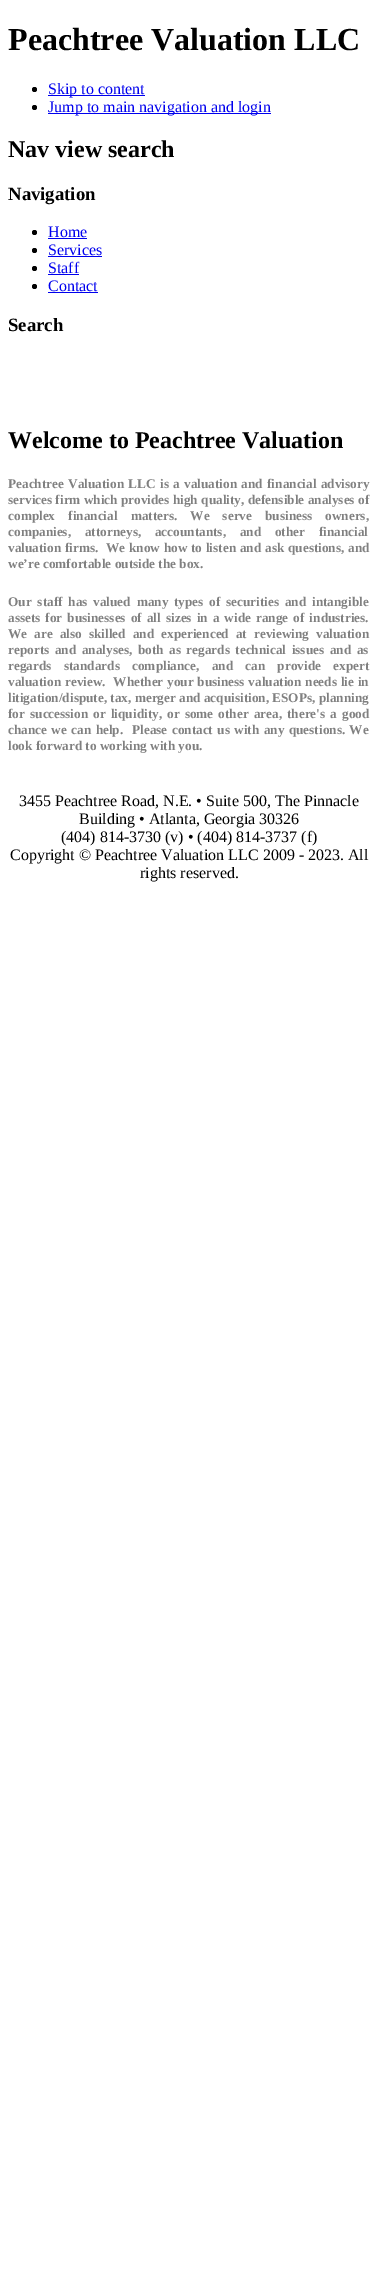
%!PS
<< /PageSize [378 2294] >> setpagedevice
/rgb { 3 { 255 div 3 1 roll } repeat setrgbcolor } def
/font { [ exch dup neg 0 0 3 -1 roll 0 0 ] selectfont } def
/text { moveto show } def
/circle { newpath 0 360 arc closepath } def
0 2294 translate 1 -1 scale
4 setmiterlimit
255 255 255 rgb
0 0 378 2294 rectfill
0 0 0 rgb
34.5 89.5 2.5 circle fill
0 0 238 rgb
48 95 97 1 rectfill
0 0 0 rgb
34.5 107.5 2.5 circle fill
0 0 238 rgb
48 113 223 1 rectfill
0 0 0 rgb
34.5 232.5 2.5 circle fill
0 0 238 rgb
48 238 39 1 rectfill
0 0 0 rgb
34.5 250.5 2.5 circle fill
0 0 238 rgb
48 256 54 1 rectfill
0 0 0 rgb
34.5 268.5 2.5 circle fill
0 0 238 rgb
48 274 31 1 rectfill
0 0 0 rgb
34.5 286.5 2.5 circle fill
0 0 238 rgb
48 292 50 1 rectfill
/LiberationSerif-Bold 32 font
0 0 0 rgb
(Peachtree Valuation LLC) 8 50 text
/LiberationSerif-Regular 16 font
0 0 238 rgb
(Skip to content) 48 94 text
(Jump to main navigation and login) 48 112 text
/LiberationSerif-Bold 24 font
0 0 0 rgb
(Nav view search) 8 157 text
/LiberationSerif-Bold 18.75 font
(Navigation) 8 200 text
/LiberationSerif-Regular 16 font
0 0 238 rgb
(Home) 48 237 text
(Services) 48 255 text
(Staff) 48 273 text
(Contact) 48 291 text
/LiberationSerif-Bold 18.75 font
0 0 0 rgb
(Search) 8 331 text
/LiberationSerif-Bold 24 font
(Welcome to Peachtree Valuation) 8 448 text
/LiberationSerif-Bold 13.25 font
128 128 128 rgb
8 488 moveto 1 0 32 (Peachtree Valuation LLC is a valuation and financial advisory) widthshow
(services firm which provides high quality, defensible analyses of) 8 504 text
8 520 moveto 9.75 0 32 (complex financial matters. We serve business owners,) widthshow
8 536 moveto 10.5 0 32 (companies, attorneys, accountants, and other financial) widthshow
8 552 moveto 0.5 0 32 (valuation firms.  We know how to listen and ask questions, and) widthshow
(we’re comfortable outside the box.) 8 568 text
8 606 moveto 2.5 0 32 (Our staff has valued many types of securities and intangible) widthshow
8 622 moveto 1.75 0 32 (assets for businesses of all sizes in a wide range of industries.) widthshow
8 638 moveto 3.75 0 32 (We are also skilled and experienced at reviewing valuation) widthshow
8 654 moveto 2.25 0 32 (reports and analyses, both as regards technical issues and as) widthshow
8 670 moveto 9 0 32 (regards standards compliance, and can provide expert) widthshow
8 686 moveto 0.5 0 32 (valuation review.  Whether your business valuation needs lie in) widthshow
(litigation/dispute, tax, merger and acquisition, ESOPs, planning) 8 702 text
8 718 moveto 1.75 0 32 (for succession or liquidity, or some other area, there's a good) widthshow
8 734 moveto 1.1 0 32 (chance we can help.  Please contact us with any questions. We) widthshow
(look forward to working with you.) 8 750 text
/LiberationSerif-Regular 16 font
0 0 0 rgb
(3455 Peachtree Road, N.E. • Suite 500, The Pinnacle) 19 806 text
(Building • Atlanta, Georgia 30326) 79 824 text
(\(404\) 814-3730 \(v\) • \(404\) 814-3737 \(f\)) 61 842 text
(Copyright © Peachtree Valuation LLC 2009 - 2023. All) 10 860 text
(rights reserved.) 140 878 text
showpage
